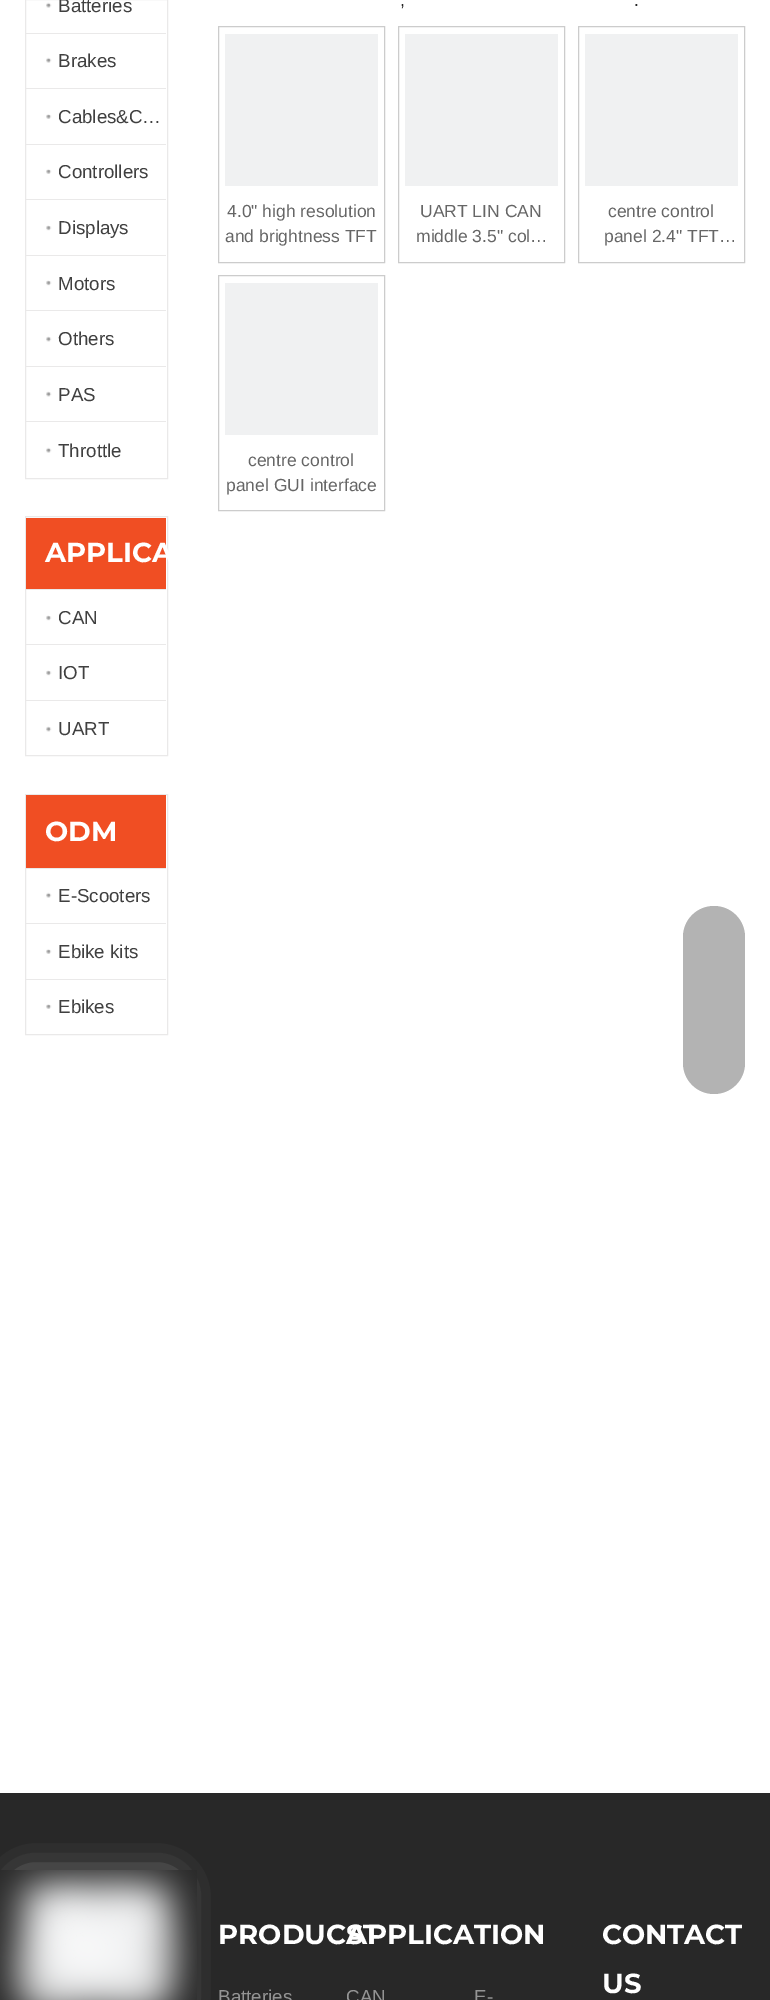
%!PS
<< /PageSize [770 2000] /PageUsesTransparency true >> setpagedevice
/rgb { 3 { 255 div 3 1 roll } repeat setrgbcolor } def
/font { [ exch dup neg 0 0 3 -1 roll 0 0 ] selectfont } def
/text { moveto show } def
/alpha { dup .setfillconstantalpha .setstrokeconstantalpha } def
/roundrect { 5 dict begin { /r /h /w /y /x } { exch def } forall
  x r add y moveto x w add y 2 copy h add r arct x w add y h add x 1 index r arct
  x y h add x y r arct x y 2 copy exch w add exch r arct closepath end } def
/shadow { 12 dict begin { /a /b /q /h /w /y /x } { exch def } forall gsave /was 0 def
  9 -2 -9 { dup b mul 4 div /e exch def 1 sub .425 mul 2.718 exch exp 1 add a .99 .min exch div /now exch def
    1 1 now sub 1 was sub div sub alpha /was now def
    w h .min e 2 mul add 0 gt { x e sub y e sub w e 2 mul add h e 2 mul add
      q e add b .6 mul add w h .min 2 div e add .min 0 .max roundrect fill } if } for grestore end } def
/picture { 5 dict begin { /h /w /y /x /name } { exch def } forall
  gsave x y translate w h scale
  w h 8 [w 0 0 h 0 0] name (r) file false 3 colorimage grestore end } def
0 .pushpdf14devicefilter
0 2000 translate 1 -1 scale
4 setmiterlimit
255 255 255 rgb
0 0 770 2000 rectfill
234 233 233 rgb
25.5 -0.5 142 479 rectstroke
(img_01.rgb) 46 2 6 6 picture
26 33 140 1 rectfill
(img_01.rgb) 46 57 6 6 picture
26 88 140 1 rectfill
(img_02.rgb) 46 114 6 5 picture
26 144 140 1 rectfill
(img_02.rgb) 46 169 6 5 picture
26 199 140 1 rectfill
(img_03.rgb) 46 225 6 6 picture
26 255 140 1 rectfill
(img_03.rgb) 46 280 6 6 picture
26 310 140 1 rectfill
(img_04.rgb) 46 336 6 6 picture
26 366 140 1 rectfill
(img_04.rgb) 46 391 6 6 picture
26 421 140 1 rectfill
(img_01.rgb) 46 447 6 6 picture
25.5 516.5 142 239 rectstroke
240 78 35 rgb
26 518 140 71 rectfill
234 233 233 rgb
26 589 140 1 rectfill
(img_03.rgb) 46 615 6 6 picture
26 644 140 1 rectfill
(img_03.rgb) 46 670 6 6 picture
26 700 140 1 rectfill
(img_04.rgb) 46 726 6 6 picture
25.5 794.5 142 240 rectstroke
240 78 35 rgb
26 795 140 73 rectfill
234 233 233 rgb
26 868 140 1 rectfill
(img_01.rgb) 46 892 6 6 picture
26 923 140 1 rectfill
(img_02.rgb) 46 949 6 5 picture
26 979 140 1 rectfill
(img_02.rgb) 46 1004 6 5 picture
204 204 204 rgb
218.5 26.5 166 236 rectstroke
240 241 242 rgb
225 34 153 152 rectfill
204 204 204 rgb
398.5 26.5 166 236 rectstroke
240 241 242 rgb
405 34 153 152 rectfill
204 204 204 rgb
578.5 26.5 166 236 rectstroke
240 241 242 rgb
585 34 153 152 rectfill
204 204 204 rgb
218.5 275.5 166 235 rectstroke
240 241 242 rgb
225 283 153 152 rectfill
40 40 40 rgb
0 1793 770 207 rectfill
179 179 179 rgb
683 906 62 188 31 roundrect fill
240 241 242 rgb
25 1886 143 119 0 19 1 shadow
(img_05.rgb) 0 1870 197 130 picture
/LiberationSans-Regular 18.75 font
64 64 64 rgb
(Batteries) 58 12 text
(Brakes) 58 67 text
(Cables&C…) 58 123 text
(Controllers) 58 178 text
(Displays) 58 234 text
(Motors) 58 290 text
(Others) 58 345 text
(PAS) 58 401 text
(Throttle) 58 457 text
/Montserrat-Thin 27.5 font
255 255 255 rgb
(APPLICA) 45 562 text
/LiberationSans-Regular 18.75 font
64 64 64 rgb
(CAN) 58 624 text
(IOT) 58 679 text
(UART) 58 735 text
/Montserrat-Thin 27.5 font
255 255 255 rgb
(ODM) 45 841 text
/LiberationSans-Regular 18.75 font
64 64 64 rgb
(E-Scooters) 58 902 text
(Ebike kits) 58 958 text
(Ebikes) 58 1013 text
/LiberationSans-Regular 17.5 font
35 35 35 rgb
(,) 400 6 text
(.) 634 6 text
102 102 102 rgb
(4.0" high resolution) 227 217 text
(and brightness TFT) 225 242 text
(UART LIN CAN) 420 217 text
(middle 3.5" col…) 416 242 text
(centre control) 608 217 text
(panel 2.4" TFT…) 604 242 text
(centre control) 248 466 text
(panel GUI interface) 226 491 text
/Montserrat-Thin 27.5 font
255 255 255 rgb
(PRODUCST) 218 1944 text
/LiberationSans-Regular 18.75 font
148 148 148 rgb
(Batteries) 218 2003 text
/Montserrat-Thin 27.5 font
255 255 255 rgb
(APPLICATION) 346 1944 text
/LiberationSans-Regular 18.75 font
148 148 148 rgb
(CAN) 346 2003 text
/Montserrat-Thin 27.5 font
255 255 255 rgb
(CONTACT) 602 1944 text
(US) 602 1993 text
/LiberationSans-Regular 18.75 font
148 148 148 rgb
(E-) 474 2003 text
.poppdf14devicefilter showpage
